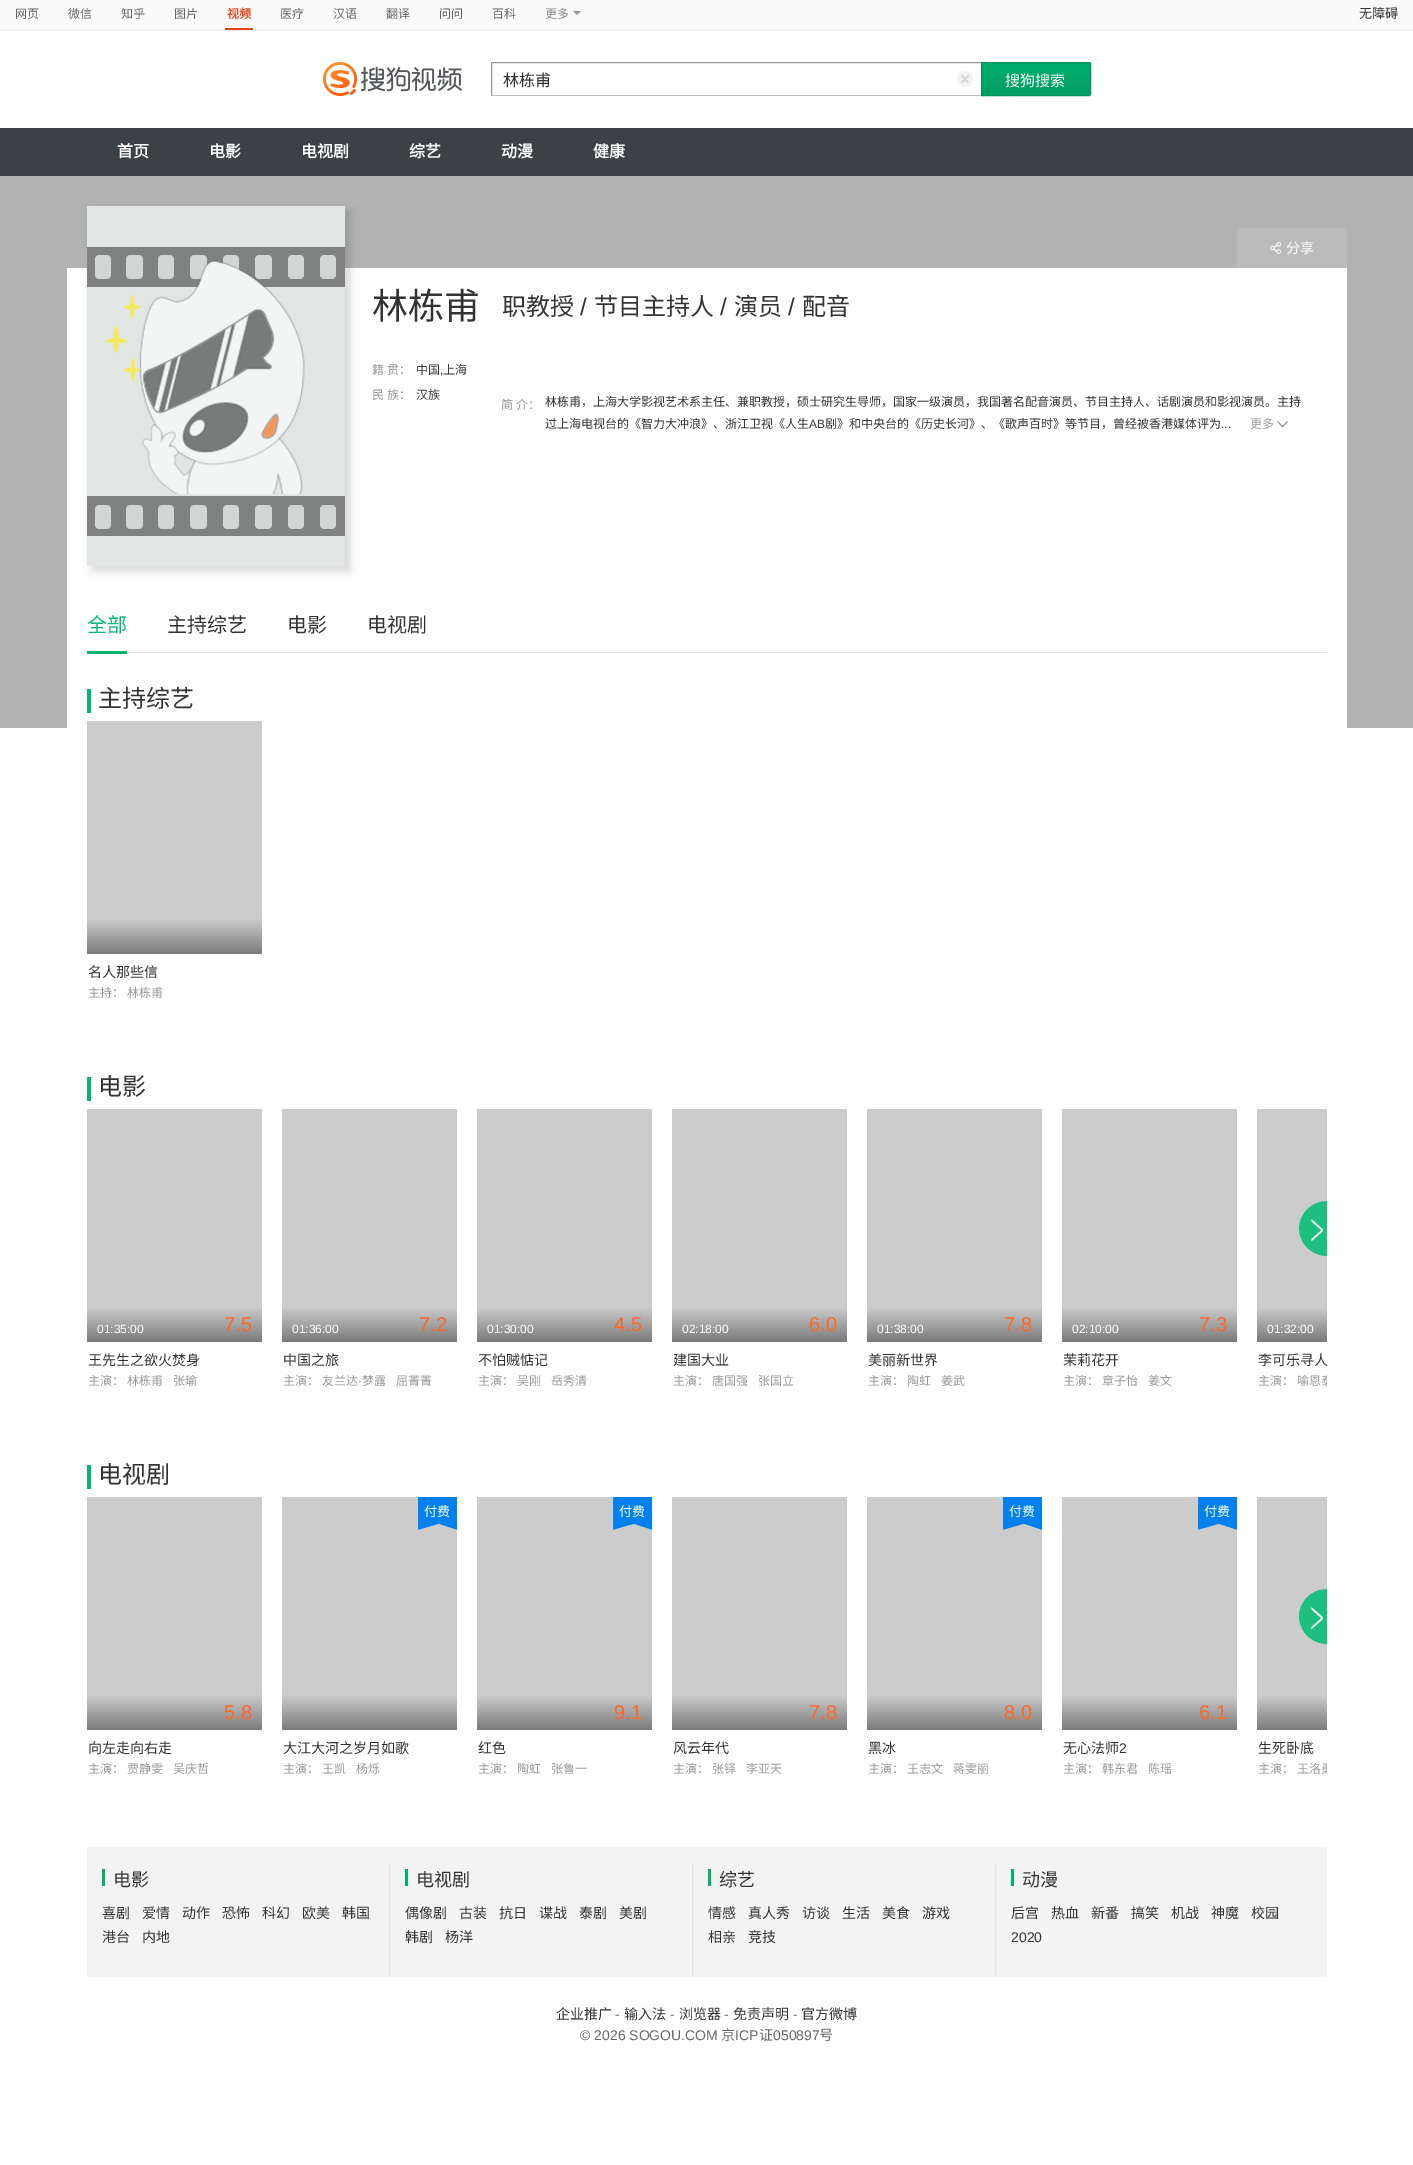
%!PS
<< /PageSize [1413 2165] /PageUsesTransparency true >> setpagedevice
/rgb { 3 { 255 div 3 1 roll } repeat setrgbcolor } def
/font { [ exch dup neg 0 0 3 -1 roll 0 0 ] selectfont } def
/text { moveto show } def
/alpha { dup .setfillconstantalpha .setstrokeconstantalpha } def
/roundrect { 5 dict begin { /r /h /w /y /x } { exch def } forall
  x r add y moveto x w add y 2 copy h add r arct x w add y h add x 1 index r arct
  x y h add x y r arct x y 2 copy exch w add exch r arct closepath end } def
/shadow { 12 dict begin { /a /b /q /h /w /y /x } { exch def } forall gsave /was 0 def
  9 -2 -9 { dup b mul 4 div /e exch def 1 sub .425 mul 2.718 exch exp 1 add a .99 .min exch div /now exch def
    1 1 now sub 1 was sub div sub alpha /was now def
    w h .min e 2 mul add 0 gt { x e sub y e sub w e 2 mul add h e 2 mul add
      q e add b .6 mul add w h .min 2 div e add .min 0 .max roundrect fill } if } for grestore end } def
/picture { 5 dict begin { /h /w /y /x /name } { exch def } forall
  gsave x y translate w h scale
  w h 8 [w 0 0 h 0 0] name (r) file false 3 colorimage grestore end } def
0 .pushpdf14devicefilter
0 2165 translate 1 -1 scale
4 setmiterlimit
255 255 255 rgb
0 0 1413 2165 rectfill
250 250 250 rgb
0 0 1413 30 rectfill
236 236 236 rgb
0 30 1413 1 rectfill
225 69 27 rgb
225 28 28 2 rectfill
153 153 153 rgb
573 11 moveto 8 0 rlineto -4 4 rlineto closepath fill
(img_01.rgb) 323 62 139 34 picture
151 151 151 rgb
491 62 490 1 rectfill
188 188 188 rgb
491 95 490 1 rectfill
151 151 151 rgb
491 62 1 34 rectfill
229 229 229 rgb
492 63 489 1 rectfill
492 63 1 32 rectfill
(img_02.rgb) 957 71 16 16 picture
gsave 982 63 moveto 109 0 rlineto 0 32 rlineto -109 0 rlineto closepath clip newpath
<< /ShadingType 2 /ColorSpace /DeviceRGB /Coords [1036 63 1036 95] /Extend [true true] /Function << /FunctionType 2 /Domain [0 1] /C0 [0.008 0.682 0.42] /C1 [0.004 0.624 0.384] /N 1 >> >> shfill grestore
2 145 90 rgb
981.5 62.5 moveto 107.5 0 rlineto 1 0 1.5 0.5 1.5 1.5 rcurveto 0 30 rlineto 0 1 -0.5 1.5 -1.5 1.5 rcurveto -107.5 0 rlineto closepath stroke
60 65 69 rgb
0 128 1413 48 rectfill
179 179 179 rgb
0 176 1413 552 rectfill
255 255 255 rgb
67 268 1280 460 rectfill
187 187 187 rgb
1237 228 110 40 rectfill
(img_03.rgb) 1270 242 11 12 picture
0 0 0 rgb
92 211 258 360 0 5 0.16 shadow
(img_04.rgb) 87 206 258 360 picture
(img_05.rgb) 1277 421 11 7 picture
229 229 229 rgb
127 652 1200 1 rectfill
4 184 114 rgb
87 651 40 3 rectfill
87 689 4 24 rectfill
204 204 204 rgb
87 721 175 198 rectfill
gsave 87 919 moveto 175 0 rlineto 0 35 rlineto -175 0 rlineto closepath clip newpath
<< /ShadingType 2 /ColorSpace /DeviceRGB /Coords [87 919 87 954] /Extend [true true] /Function << /FunctionType 2 /Domain [0 1] /C0 [0.8 0.8 0.8] /C1 [0.478 0.478 0.478] /N 1 >> >> shfill grestore
4 184 114 rgb
87 1077 4 24 rectfill
204 204 204 rgb
1257 1109 70 198 rectfill
(img_06.rgb) 1299 1201 28 55 picture
87 1109 175 198 rectfill
gsave 87 1307 moveto 175 0 rlineto 0 35 rlineto -175 0 rlineto closepath clip newpath
<< /ShadingType 2 /ColorSpace /DeviceRGB /Coords [87 1307 87 1342] /Extend [true true] /Function << /FunctionType 2 /Domain [0 1] /C0 [0.8 0.8 0.8] /C1 [0.478 0.478 0.478] /N 1 >> >> shfill grestore
282 1109 175 198 rectfill
gsave 282 1307 moveto 175 0 rlineto 0 35 rlineto -175 0 rlineto closepath clip newpath
<< /ShadingType 2 /ColorSpace /DeviceRGB /Coords [282 1307 282 1342] /Extend [true true] /Function << /FunctionType 2 /Domain [0 1] /C0 [0.8 0.8 0.8] /C1 [0.478 0.478 0.478] /N 1 >> >> shfill grestore
477 1109 175 198 rectfill
gsave 477 1307 moveto 175 0 rlineto 0 35 rlineto -175 0 rlineto closepath clip newpath
<< /ShadingType 2 /ColorSpace /DeviceRGB /Coords [477 1307 477 1342] /Extend [true true] /Function << /FunctionType 2 /Domain [0 1] /C0 [0.8 0.8 0.8] /C1 [0.478 0.478 0.478] /N 1 >> >> shfill grestore
672 1109 175 198 rectfill
gsave 672 1307 moveto 175 0 rlineto 0 35 rlineto -175 0 rlineto closepath clip newpath
<< /ShadingType 2 /ColorSpace /DeviceRGB /Coords [672 1307 672 1342] /Extend [true true] /Function << /FunctionType 2 /Domain [0 1] /C0 [0.8 0.8 0.8] /C1 [0.478 0.478 0.478] /N 1 >> >> shfill grestore
867 1109 175 198 rectfill
gsave 867 1307 moveto 175 0 rlineto 0 35 rlineto -175 0 rlineto closepath clip newpath
<< /ShadingType 2 /ColorSpace /DeviceRGB /Coords [867 1307 867 1342] /Extend [true true] /Function << /FunctionType 2 /Domain [0 1] /C0 [0.8 0.8 0.8] /C1 [0.478 0.478 0.478] /N 1 >> >> shfill grestore
1062 1109 175 198 rectfill
gsave 1062 1307 moveto 175 0 rlineto 0 35 rlineto -175 0 rlineto closepath clip newpath
<< /ShadingType 2 /ColorSpace /DeviceRGB /Coords [1062 1307 1062 1342] /Extend [true true] /Function << /FunctionType 2 /Domain [0 1] /C0 [0.8 0.8 0.8] /C1 [0.478 0.478 0.478] /N 1 >> >> shfill grestore
gsave 1257 1307 moveto 70 0 rlineto 0 35 rlineto -70 0 rlineto closepath clip newpath
<< /ShadingType 2 /ColorSpace /DeviceRGB /Coords [1257 1307 1257 1342] /Extend [true true] /Function << /FunctionType 2 /Domain [0 1] /C0 [0.8 0.8 0.8] /C1 [0.478 0.478 0.478] /N 1 >> >> shfill grestore
4 184 114 rgb
87 1465 4 24 rectfill
204 204 204 rgb
87 1497 175 198 rectfill
gsave 87 1695 moveto 175 0 rlineto 0 35 rlineto -175 0 rlineto closepath clip newpath
<< /ShadingType 2 /ColorSpace /DeviceRGB /Coords [87 1695 87 1730] /Extend [true true] /Function << /FunctionType 2 /Domain [0 1] /C0 [0.8 0.8 0.8] /C1 [0.478 0.478 0.478] /N 1 >> >> shfill grestore
282 1497 175 198 rectfill
(img_07.rgb) 418 1497 39 33 picture
gsave 282 1695 moveto 175 0 rlineto 0 35 rlineto -175 0 rlineto closepath clip newpath
<< /ShadingType 2 /ColorSpace /DeviceRGB /Coords [282 1695 282 1730] /Extend [true true] /Function << /FunctionType 2 /Domain [0 1] /C0 [0.8 0.8 0.8] /C1 [0.478 0.478 0.478] /N 1 >> >> shfill grestore
477 1497 175 198 rectfill
(img_07.rgb) 613 1497 39 33 picture
gsave 477 1695 moveto 175 0 rlineto 0 35 rlineto -175 0 rlineto closepath clip newpath
<< /ShadingType 2 /ColorSpace /DeviceRGB /Coords [477 1695 477 1730] /Extend [true true] /Function << /FunctionType 2 /Domain [0 1] /C0 [0.8 0.8 0.8] /C1 [0.478 0.478 0.478] /N 1 >> >> shfill grestore
672 1497 175 198 rectfill
gsave 672 1695 moveto 175 0 rlineto 0 35 rlineto -175 0 rlineto closepath clip newpath
<< /ShadingType 2 /ColorSpace /DeviceRGB /Coords [672 1695 672 1730] /Extend [true true] /Function << /FunctionType 2 /Domain [0 1] /C0 [0.8 0.8 0.8] /C1 [0.478 0.478 0.478] /N 1 >> >> shfill grestore
867 1497 175 198 rectfill
(img_07.rgb) 1003 1497 39 33 picture
gsave 867 1695 moveto 175 0 rlineto 0 35 rlineto -175 0 rlineto closepath clip newpath
<< /ShadingType 2 /ColorSpace /DeviceRGB /Coords [867 1695 867 1730] /Extend [true true] /Function << /FunctionType 2 /Domain [0 1] /C0 [0.8 0.8 0.8] /C1 [0.478 0.478 0.478] /N 1 >> >> shfill grestore
1062 1497 175 198 rectfill
(img_07.rgb) 1198 1497 39 33 picture
gsave 1062 1695 moveto 175 0 rlineto 0 35 rlineto -175 0 rlineto closepath clip newpath
<< /ShadingType 2 /ColorSpace /DeviceRGB /Coords [1062 1695 1062 1730] /Extend [true true] /Function << /FunctionType 2 /Domain [0 1] /C0 [0.8 0.8 0.8] /C1 [0.478 0.478 0.478] /N 1 >> >> shfill grestore
1257 1497 70 198 rectfill
gsave 1257 1695 moveto 70 0 rlineto 0 35 rlineto -70 0 rlineto closepath clip newpath
<< /ShadingType 2 /ColorSpace /DeviceRGB /Coords [1257 1695 1257 1730] /Extend [true true] /Function << /FunctionType 2 /Domain [0 1] /C0 [0.8 0.8 0.8] /C1 [0.478 0.478 0.478] /N 1 >> >> shfill grestore
(img_06.rgb) 1299 1589 28 55 picture
243 243 243 rgb
87 1847 1240 130 rectfill
0 178 105 rgb
102 1869 3 17 rectfill
gsave
87 1847 1240 130 rectclip
208 208 208 rgb
[1 1] 0 setdash
389.5 1865 moveto 0 121 rlineto stroke
grestore
405 1869 3 17 rectfill
gsave
87 1847 1240 130 rectclip
208 208 208 rgb
[1 1] 0 setdash
692.5 1865 moveto 0 121 rlineto stroke
grestore
708 1869 3 17 rectfill
gsave
87 1847 1240 130 rectclip
208 208 208 rgb
[1 1] 0 setdash
995.5 1865 moveto 0 121 rlineto stroke
grestore
1011 1869 3 17 rectfill
/NotoSansCJKSC-Regular 12 font
102 102 102 rgb
(网页) 15 18 text
(微信) 68 18 text
(知乎) 121 18 text
(图片) 174 18 text
/NotoSansCJKSC-Bold 12 font
225 69 27 rgb
(视频) 227 18 text
/NotoSansCJKSC-Regular 12 font
102 102 102 rgb
(医疗) 280 18 text
(汉语) 333 18 text
(翻译) 386 18 text
(问问) 439 18 text
(百科) 492 18 text
136 136 136 rgb
(更多) 545 18 text
/NotoSansCJKSC-Regular 13 font
51 51 51 rgb
(无障碍) 1359 18 text
/NotoSansCJKSC-Regular 16 font
(林栋甫) 503 86 text
/NotoSansCJKSC-Regular 15 font
255 255 255 rgb
(搜狗搜索) 1005 86 text
/NotoSansCJKSC-Bold 16 font
(首页) 117 157 text
(电影) 209 157 text
(电视剧) 301 157 text
(综艺) 409 157 text
(动漫) 501 157 text
(健康) 593 157 text
/NotoSansCJKSC-Regular 14 font
(分享) 1286 253 text
/NotoSansCJKSC-Regular 36 font
51 51 51 rgb
(林栋甫) 372 319 text
/NotoSansCJKSC-Regular 24 font
(职教授) 502 315 text
/LiberationSans-Regular 24 font
(/) 580 315 text
/NotoSansCJKSC-Regular 24 font
(节目主持人) 594 315 text
/LiberationSans-Regular 24 font
(/) 720 315 text
/NotoSansCJKSC-Regular 24 font
(演员) 734 315 text
/LiberationSans-Regular 24 font
(/) 788 315 text
/NotoSansCJKSC-Regular 24 font
(配音) 802 315 text
/NotoSansCJKSC-Regular 12 font
147 149 151 rgb
(籍) 372 374 text
(贯：) 387 374 text
51 51 51 rgb
(中国) 416 374 text
/LiberationSans-Regular 12 font
(,) 440 374 text
/NotoSansCJKSC-Regular 12 font
(上海) 443 374 text
147 149 151 rgb
(民) 372 399 text
(族：) 387 399 text
51 51 51 rgb
(汉族) 416 399 text
147 149 151 rgb
(简) 501 409 text
(介：) 516 409 text
51 51 51 rgb
(林栋甫，上海大学影视艺术系主任、兼职教授，硕士研究生导师，国家一级演员，我国著名配音演员、节目主持人、话剧演员和影视演员。主持) 545 406 text
(过上海电视台的《智力大冲浪》、浙江卫视《人生) 545 428 text
/LiberationSans-Regular 12 font
(AB) 809 428 text
/NotoSansCJKSC-Regular 12 font
(剧》和中央台的《历史长河》、《歌声百时》等节目，曾经被香港媒体评为) 825 428 text
/LiberationSans-Regular 12 font
(...) 1221 428 text
/NotoSansCJKSC-Regular 12 font
153 153 153 rgb
(更多) 1250 428 text
/NotoSansCJKSC-Regular 20 font
4 184 114 rgb
(全部) 87 632 text
51 51 51 rgb
(主持综艺) 167 632 text
(电影) 287 632 text
(电视剧) 367 632 text
/NotoSansCJKSC-Regular 24 font
(主持综艺) 98 707 text
/NotoSansCJKSC-Regular 14 font
(名人那些信) 88 977 text
/NotoSansCJKSC-Regular 12 font
153 153 153 rgb
(主持：) 88 997 text
(林栋甫) 127 997 text
/NotoSansCJKSC-Regular 24 font
51 51 51 rgb
(电影) 98 1095 text
/LiberationSans-Regular 12 font
255 255 255 rgb
(01:35:00) 97 1333 text
/LiberationSans-Regular 20 font
255 101 37 rgb
(7.5) 224 1331 text
/NotoSansCJKSC-Regular 14 font
51 51 51 rgb
(王先生之欲火焚身) 88 1365 text
/NotoSansCJKSC-Regular 12 font
153 153 153 rgb
(主演：) 88 1385 text
(林栋甫) 127 1385 text
(张瑜) 173 1385 text
/LiberationSans-Regular 12 font
255 255 255 rgb
(01:36:00) 292 1333 text
/LiberationSans-Regular 20 font
255 101 37 rgb
(7.2) 419 1331 text
/NotoSansCJKSC-Regular 14 font
51 51 51 rgb
(中国之旅) 283 1365 text
/NotoSansCJKSC-Regular 12 font
153 153 153 rgb
(主演：) 283 1385 text
(友兰达) 322 1385 text
/LiberationSans-Regular 12 font
(·) 358 1385 text
/NotoSansCJKSC-Regular 12 font
(梦露) 362 1385 text
(屈菁菁) 396 1385 text
/LiberationSans-Regular 12 font
255 255 255 rgb
(01:30:00) 487 1333 text
/LiberationSans-Regular 20 font
255 101 37 rgb
(4.5) 614 1331 text
/NotoSansCJKSC-Regular 14 font
51 51 51 rgb
(不怕贼惦记) 478 1365 text
/NotoSansCJKSC-Regular 12 font
153 153 153 rgb
(主演：) 478 1385 text
(吴刚) 517 1385 text
(岳秀清) 551 1385 text
/LiberationSans-Regular 12 font
255 255 255 rgb
(02:18:00) 682 1333 text
/LiberationSans-Regular 20 font
255 101 37 rgb
(6.0) 809 1331 text
/NotoSansCJKSC-Regular 14 font
51 51 51 rgb
(建国大业) 673 1365 text
/NotoSansCJKSC-Regular 12 font
153 153 153 rgb
(主演：) 673 1385 text
(唐国强) 712 1385 text
(张国立) 758 1385 text
/LiberationSans-Regular 12 font
255 255 255 rgb
(01:38:00) 877 1333 text
/LiberationSans-Regular 20 font
255 101 37 rgb
(7.8) 1004 1331 text
/NotoSansCJKSC-Regular 14 font
51 51 51 rgb
(美丽新世界) 868 1365 text
/NotoSansCJKSC-Regular 12 font
153 153 153 rgb
(主演：) 868 1385 text
(陶虹) 907 1385 text
(姜武) 941 1385 text
/LiberationSans-Regular 12 font
255 255 255 rgb
(02:10:00) 1072 1333 text
/LiberationSans-Regular 20 font
255 101 37 rgb
(7.3) 1199 1331 text
/NotoSansCJKSC-Regular 14 font
51 51 51 rgb
(茉莉花开) 1063 1365 text
/NotoSansCJKSC-Regular 12 font
153 153 153 rgb
(主演：) 1063 1385 text
(章子怡) 1102 1385 text
(姜文) 1148 1385 text
/LiberationSans-Regular 12 font
255 255 255 rgb
(01:32:00) 1267 1333 text
/NotoSansCJKSC-Regular 14 font
51 51 51 rgb
(李可乐寻人) 1258 1365 text
/NotoSansCJKSC-Regular 12 font
153 153 153 rgb
(主演：) 1258 1385 text
gsave
1257 1374 70 15 rectclip
(喻恩泰) 1297 1385 text
grestore
/NotoSansCJKSC-Regular 24 font
51 51 51 rgb
(电视剧) 98 1483 text
/LiberationSans-Regular 20 font
255 101 37 rgb
(5.8) 224 1719 text
/NotoSansCJKSC-Regular 14 font
51 51 51 rgb
(向左走向右走) 88 1753 text
/NotoSansCJKSC-Regular 12 font
153 153 153 rgb
(主演：) 88 1773 text
(贾静雯) 127 1773 text
(吴庆哲) 173 1773 text
/NotoSansCJKSC-Regular 13 font
255 255 255 rgb
(付费) 424 1516 text
/NotoSansCJKSC-Regular 14 font
51 51 51 rgb
(大江大河之岁月如歌) 283 1753 text
/NotoSansCJKSC-Regular 12 font
153 153 153 rgb
(主演：) 283 1773 text
(王凯) 322 1773 text
(杨烁) 356 1773 text
/NotoSansCJKSC-Regular 13 font
255 255 255 rgb
(付费) 619 1516 text
/LiberationSans-Regular 20 font
255 101 37 rgb
(9.1) 614 1719 text
/NotoSansCJKSC-Regular 14 font
51 51 51 rgb
(红色) 478 1753 text
/NotoSansCJKSC-Regular 12 font
153 153 153 rgb
(主演：) 478 1773 text
(陶虹) 517 1773 text
(张鲁一) 551 1773 text
/LiberationSans-Regular 20 font
255 101 37 rgb
(7.8) 809 1719 text
/NotoSansCJKSC-Regular 14 font
51 51 51 rgb
(风云年代) 673 1753 text
/NotoSansCJKSC-Regular 12 font
153 153 153 rgb
(主演：) 673 1773 text
(张铎) 712 1773 text
(李亚天) 746 1773 text
/NotoSansCJKSC-Regular 13 font
255 255 255 rgb
(付费) 1009 1516 text
/LiberationSans-Regular 20 font
255 101 37 rgb
(8.0) 1004 1719 text
/NotoSansCJKSC-Regular 14 font
51 51 51 rgb
(黑冰) 868 1753 text
/NotoSansCJKSC-Regular 12 font
153 153 153 rgb
(主演：) 868 1773 text
(王志文) 907 1773 text
(蒋雯丽) 953 1773 text
/NotoSansCJKSC-Regular 13 font
255 255 255 rgb
(付费) 1204 1516 text
/LiberationSans-Regular 20 font
255 101 37 rgb
(6.1) 1199 1719 text
/NotoSansCJKSC-Regular 14 font
51 51 51 rgb
(无心法师) 1063 1753 text
/LiberationSans-Regular 14 font
(2) 1119 1753 text
/NotoSansCJKSC-Regular 12 font
153 153 153 rgb
(主演：) 1063 1773 text
(韩东君) 1102 1773 text
(陈瑶) 1148 1773 text
/NotoSansCJKSC-Regular 14 font
51 51 51 rgb
(生死卧底) 1258 1753 text
/NotoSansCJKSC-Regular 12 font
153 153 153 rgb
(主演：) 1258 1773 text
gsave
1257 1762 70 15 rectclip
(王洛勇) 1297 1773 text
grestore
/NotoSansCJKSC-Regular 18 font
51 51 51 rgb
(电影) 113 1886 text
/NotoSansCJKSC-Regular 14 font
(喜剧) 102 1918 text
(爱情) 142 1918 text
(动作) 182 1918 text
(恐怖) 222 1918 text
(科幻) 262 1918 text
(欧美) 302 1918 text
(韩国) 342 1918 text
(港台) 102 1942 text
(内地) 142 1942 text
/NotoSansCJKSC-Regular 18 font
(电视剧) 416 1886 text
/NotoSansCJKSC-Regular 14 font
(偶像剧) 405 1918 text
(古装) 459 1918 text
(抗日) 499 1918 text
(谍战) 539 1918 text
(泰剧) 579 1918 text
(美剧) 619 1918 text
(韩剧) 405 1942 text
(杨洋) 445 1942 text
/NotoSansCJKSC-Regular 18 font
(综艺) 719 1886 text
/NotoSansCJKSC-Regular 14 font
(情感) 708 1918 text
(真人秀) 748 1918 text
(访谈) 802 1918 text
(生活) 842 1918 text
(美食) 882 1918 text
(游戏) 922 1918 text
(相亲) 708 1942 text
(竞技) 748 1942 text
/NotoSansCJKSC-Regular 18 font
(动漫) 1022 1886 text
/NotoSansCJKSC-Regular 14 font
(后宫) 1011 1918 text
(热血) 1051 1918 text
(新番) 1091 1918 text
(搞笑) 1131 1918 text
(机战) 1171 1918 text
(神魔) 1211 1918 text
(校园) 1251 1918 text
/LiberationSans-Regular 14 font
(2020) 1011 1942 text
/NotoSansCJKSC-Regular 14 font
(企业推广) 556 2019 text
/LiberationSans-Regular 14 font
102 102 102 rgb
(-) 615 2019 text
/NotoSansCJKSC-Regular 14 font
51 51 51 rgb
(输入法) 624 2019 text
/LiberationSans-Regular 14 font
102 102 102 rgb
(-) 670 2019 text
/NotoSansCJKSC-Regular 14 font
51 51 51 rgb
(浏览器) 679 2019 text
/LiberationSans-Regular 14 font
102 102 102 rgb
(-) 724 2019 text
/NotoSansCJKSC-Regular 14 font
51 51 51 rgb
(免责声明) 733 2019 text
/LiberationSans-Regular 14 font
102 102 102 rgb
(-) 793 2019 text
/NotoSansCJKSC-Regular 14 font
51 51 51 rgb
(官方微博) 801 2019 text
/LiberationSans-Regular 14 font
102 102 102 rgb
(© 2026 SOGOU.COM) 580 2040 text
/NotoSansCJKSC-Regular 14 font
(京) 721 2040 text
/LiberationSans-Regular 14 font
(ICP) 735 2040 text
/NotoSansCJKSC-Regular 14 font
(证) 759 2040 text
/LiberationSans-Regular 14 font
(050897) 773 2040 text
/NotoSansCJKSC-Regular 14 font
(号) 819 2040 text
.poppdf14devicefilter showpage
